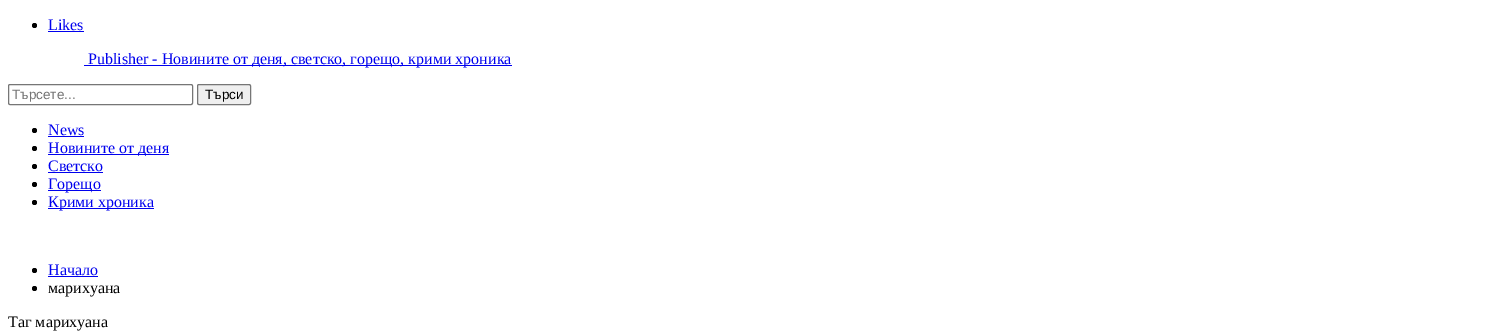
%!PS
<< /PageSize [1485 332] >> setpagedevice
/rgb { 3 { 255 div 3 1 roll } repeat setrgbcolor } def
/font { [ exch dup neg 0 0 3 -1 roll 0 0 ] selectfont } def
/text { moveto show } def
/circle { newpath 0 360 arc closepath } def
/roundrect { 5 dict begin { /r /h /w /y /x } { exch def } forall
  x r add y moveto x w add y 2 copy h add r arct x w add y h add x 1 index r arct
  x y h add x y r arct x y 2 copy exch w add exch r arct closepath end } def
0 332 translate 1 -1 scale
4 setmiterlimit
255 255 255 rgb
0 0 1485 332 rectfill
0 0 0 rgb
34.5 25.5 2.5 circle fill
0 0 238 rgb
48 31 36 1 rectfill
84 65 428 1 rectfill
118 118 118 rgb
8.5 84.5 184 20 1.5 roundrect stroke
239 239 239 rgb
197.5 84.5 53 20 1.5 roundrect gsave fill grestore
118 118 118 rgb
stroke
0 0 0 rgb
34.5 130.5 2.5 circle fill
0 0 238 rgb
48 136 36 1 rectfill
0 0 0 rgb
34.5 148.5 2.5 circle fill
0 0 238 rgb
48 154 121 1 rectfill
0 0 0 rgb
34.5 166.5 2.5 circle fill
0 0 238 rgb
48 172 55 1 rectfill
0 0 0 rgb
34.5 184.5 2.5 circle fill
0 0 238 rgb
48 190 53 1 rectfill
0 0 0 rgb
34.5 202.5 2.5 circle fill
0 0 238 rgb
48 208 106 1 rectfill
0 0 0 rgb
34.5 270.5 2.5 circle fill
0 0 238 rgb
48 276 50 1 rectfill
0 0 0 rgb
34.5 288.5 2.5 circle fill
/LiberationSerif-Regular 16 font
0 0 238 rgb
(Likes) 48 30 text
(Publisher - Новините от деня, светско, горещо, крими хроника) 88 64 text
/LiberationSans-Regular 13.5 font
117 117 117 rgb
(Търсете...) 12 99 text
0 0 0 rgb
(Търси) 205 99 text
/LiberationSerif-Regular 16 font
0 0 238 rgb
(News) 48 135 text
(Новините от деня) 48 153 text
(Светско) 48 171 text
(Горещо) 48 189 text
(Крими хроника) 48 207 text
(Начало) 48 275 text
0 0 0 rgb
(марихуана) 48 293 text
(Таг марихуана) 8 327 text
showpage
